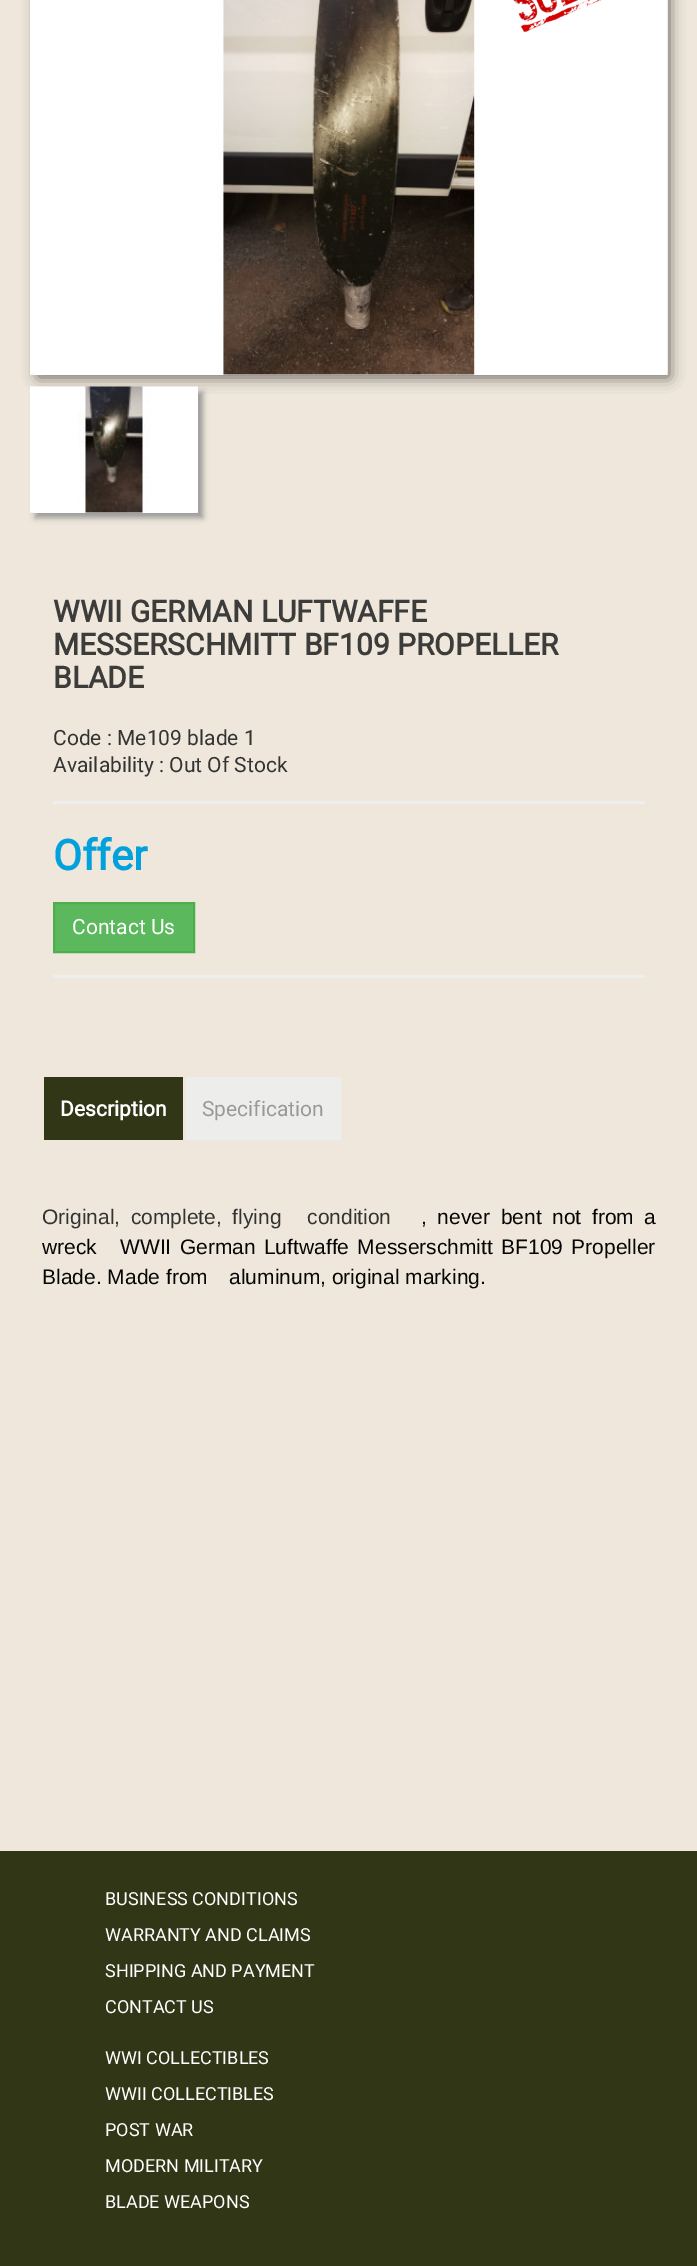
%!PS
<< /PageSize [697 2266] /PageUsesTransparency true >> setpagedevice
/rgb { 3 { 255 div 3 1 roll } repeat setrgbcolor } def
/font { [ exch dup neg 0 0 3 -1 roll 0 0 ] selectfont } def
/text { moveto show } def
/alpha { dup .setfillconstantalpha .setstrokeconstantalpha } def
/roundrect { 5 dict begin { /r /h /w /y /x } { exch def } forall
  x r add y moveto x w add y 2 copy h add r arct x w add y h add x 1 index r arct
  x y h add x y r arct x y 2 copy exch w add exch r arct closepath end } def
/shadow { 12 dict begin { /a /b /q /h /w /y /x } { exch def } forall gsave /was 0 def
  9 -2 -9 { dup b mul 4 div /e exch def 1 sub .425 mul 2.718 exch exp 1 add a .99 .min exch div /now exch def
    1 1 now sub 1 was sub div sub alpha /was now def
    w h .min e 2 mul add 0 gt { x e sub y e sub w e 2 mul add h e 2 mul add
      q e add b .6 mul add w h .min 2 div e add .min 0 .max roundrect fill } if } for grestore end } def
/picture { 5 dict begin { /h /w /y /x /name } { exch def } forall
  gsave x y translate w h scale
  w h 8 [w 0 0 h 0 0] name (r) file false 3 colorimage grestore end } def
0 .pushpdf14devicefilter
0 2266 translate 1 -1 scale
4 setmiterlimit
239 231 219 rgb
0 0 697 2266 rectfill
255 255 255 rgb
30 -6 638 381 6 roundrect fill
0 0 0 rgb
38 -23 631 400 0 7.5 0.6 shadow
(img_01.rgb) 30 0 638 375 picture
(img_02.rgb) 513 0 89 33 picture
153 153 153 rgb
35 392 168 126 0 3 1 shadow
255 255 255 rgb
30 387 168 126 6 roundrect fill
(img_03.rgb) 30 386 168 127 picture
238 238 238 rgb
53 801 592 3 rectfill
92 184 92 rgb
54 903 moveto 140 0 rlineto 0 49 rlineto -140 0 rlineto closepath gsave fill grestore
76 174 76 rgb
2 setlinewidth
stroke
238 238 238 rgb
53 975 592 3 rectfill
49 54 22 rgb
44 1077 139 63 rectfill
237 237 236 rgb
186 1077 155 63 rectfill
49 54 22 rgb
0 1851 697 415 rectfill
/Roboto-Bold 30 font
60 60 59 rgb
(WWII GERMAN LUFTWAFFE) 53 622 text
(MESSERSCHMITT BF109 PROPELLER) 53 655 text
(BLADE) 53 688 text
/Roboto-Regular 21 font
51 51 51 rgb
(Code : Me109 blade 1) 53 745 text
(Availability : Out Of Stock) 53 772 text
/Roboto-Bold 42 font
3 161 219 rgb
(Offer) 53 870 text
/Roboto-Regular 21 font
255 255 255 rgb
(Contact Us) 72 934 text
/Roboto-Bold 21 font
(Description) 60 1116 text
/Roboto-Regular 21 font
153 153 153 rgb
(Specification) 202 1116 text
/LiberationSans-Regular 21 font
51 51 51 rgb
42 1224 moveto 4.75 0 32 (Original, complete, flying) widthshow
(condition) 307 1224 text
5 5 5 rgb
421 1224 moveto 4.75 0 32 (, never bent not from a) widthshow
(wreck) 42 1254 text
120 1254 moveto 2.5 0 32 (WWII German Luftwaffe Messerschmitt BF109 Propeller) widthshow
(Blade. Made from) 42 1284 text
(aluminum, original marking.) 229 1284 text
/Roboto-Regular 18 font
255 255 255 rgb
(BUSINESS CONDITIONS) 105 1905 text
(WARRANTY AND CLAIMS) 105 1941 text
(SHIPPING AND PAYMENT) 105 1977 text
(CONTACT US) 105 2013 text
(WWI COLLECTIBLES) 105 2064 text
(WWII COLLECTIBLES) 105 2100 text
(POST WAR) 105 2136 text
(MODERN MILITARY) 105 2172 text
(BLADE WEAPONS) 105 2208 text
.poppdf14devicefilter showpage
